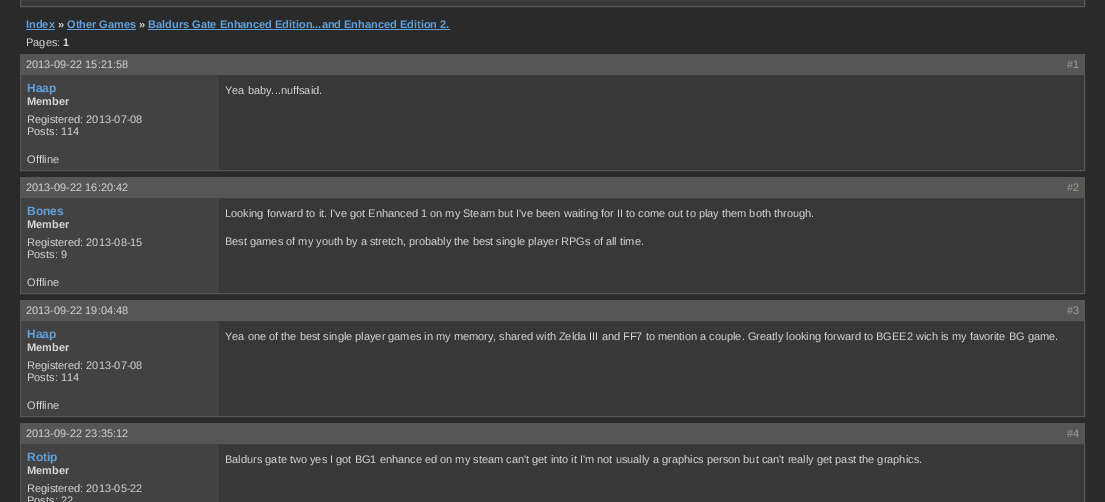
%!PS
<< /PageSize [1105 502] >> setpagedevice
/rgb { 3 { 255 div 3 1 roll } repeat setrgbcolor } def
/font { [ exch dup neg 0 0 3 -1 roll 0 0 ] selectfont } def
/text { moveto show } def
0 502 translate 1 -1 scale
4 setmiterlimit
42 42 42 rgb
0 0 1105 502 rectfill
56 56 56 rgb
20.5 -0.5 moveto 1064 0 rlineto 0 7 rlineto -1064 0 rlineto closepath gsave fill grestore
86 86 86 rgb
stroke
96 160 220 rgb
26 29 29 1 rectfill
67 29 69 1 rectfill
148 29 302 1 rectfill
86 86 86 rgb
20 54 1065 20 rectfill
56 56 56 rgb
219 75 865 95 rectfill
86 86 86 rgb
20.5 74.5 1064 96 rectstroke
66 66 66 rgb
21 75 198 95 rectfill
86 86 86 rgb
20 177 1065 20 rectfill
56 56 56 rgb
219 198 865 95 rectfill
86 86 86 rgb
20.5 197.5 1064 96 rectstroke
66 66 66 rgb
21 198 198 95 rectfill
86 86 86 rgb
20 300 1065 20 rectfill
56 56 56 rgb
219 321 865 95 rectfill
86 86 86 rgb
20.5 320.5 1064 96 rectstroke
66 66 66 rgb
21 321 198 95 rectfill
86 86 86 rgb
20 423 1065 20 rectfill
56 56 56 rgb
219 444 865 58 rectfill
86 86 86 rgb
20.5 443.5 1064 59 rectstroke
66 66 66 rgb
21 444 198 58 rectfill
/LiberationSans-Bold 11 font
96 160 220 rgb
(Index) 26 28 text
212 212 212 rgb
(») 58 28 text
96 160 220 rgb
(Other Games) 67 28 text
212 212 212 rgb
(») 139 28 text
96 160 220 rgb
(Baldurs Gate Enhanced Edition...and Enhanced Edition 2.) 148 28 text
/LiberationSans-Regular 11 font
212 212 212 rgb
(Pages:) 26 46 text
/LiberationSans-Bold 11 font
(1) 63 46 text
/LiberationSans-Regular 11 font
(2013-09-22 15:21:58) 26 68 text
161 158 150 rgb
(#1) 1067 68 text
/LiberationSans-Bold 12 font
96 160 220 rgb
(Haap) 27 92 text
/LiberationSans-Bold 11 font
212 212 212 rgb
(Member) 27 105 text
/LiberationSans-Regular 11 font
(Registered: 2013-07-08) 27 123 text
(Posts: 114) 27 135 text
(Yea baby...nuffsaid.) 225 94 text
(Offline) 27 163 text
(2013-09-22 16:20:42) 26 191 text
161 158 150 rgb
(#2) 1067 191 text
/LiberationSans-Bold 12 font
96 160 220 rgb
(Bones) 27 215 text
/LiberationSans-Bold 11 font
212 212 212 rgb
(Member) 27 228 text
/LiberationSans-Regular 11 font
(Registered: 2013-08-15) 27 246 text
(Posts: 9) 27 258 text
(Looking forward to it. I've got Enhanced 1 on my Steam but I've been waiting for II to come out to play them both through.) 225 217 text
(Best games of my youth by a stretch, probably the best single player RPGs of all time.) 225 245 text
(Offline) 27 286 text
(2013-09-22 19:04:48) 26 314 text
161 158 150 rgb
(#3) 1067 314 text
/LiberationSans-Bold 12 font
96 160 220 rgb
(Haap) 27 338 text
/LiberationSans-Bold 11 font
212 212 212 rgb
(Member) 27 351 text
/LiberationSans-Regular 11 font
(Registered: 2013-07-08) 27 369 text
(Posts: 114) 27 381 text
(Yea one of the best single player games in my memory, shared with Zelda III and FF7 to mention a couple. Greatly looking forward to BGEE2 wich is my favorite BG game.) 225 340 text
(Offline) 27 409 text
(2013-09-22 23:35:12) 26 437 text
161 158 150 rgb
(#4) 1067 437 text
/LiberationSans-Bold 12 font
96 160 220 rgb
(Rotip) 27 461 text
/LiberationSans-Bold 11 font
212 212 212 rgb
(Member) 27 474 text
/LiberationSans-Regular 11 font
(Registered: 2013-05-22) 27 492 text
(Posts: 22) 27 504 text
(Baldurs gate two yes I got BG1 enhance ed on my steam can't get into it I'm not usually a graphics person but can't really get past the graphics.) 225 463 text
showpage
